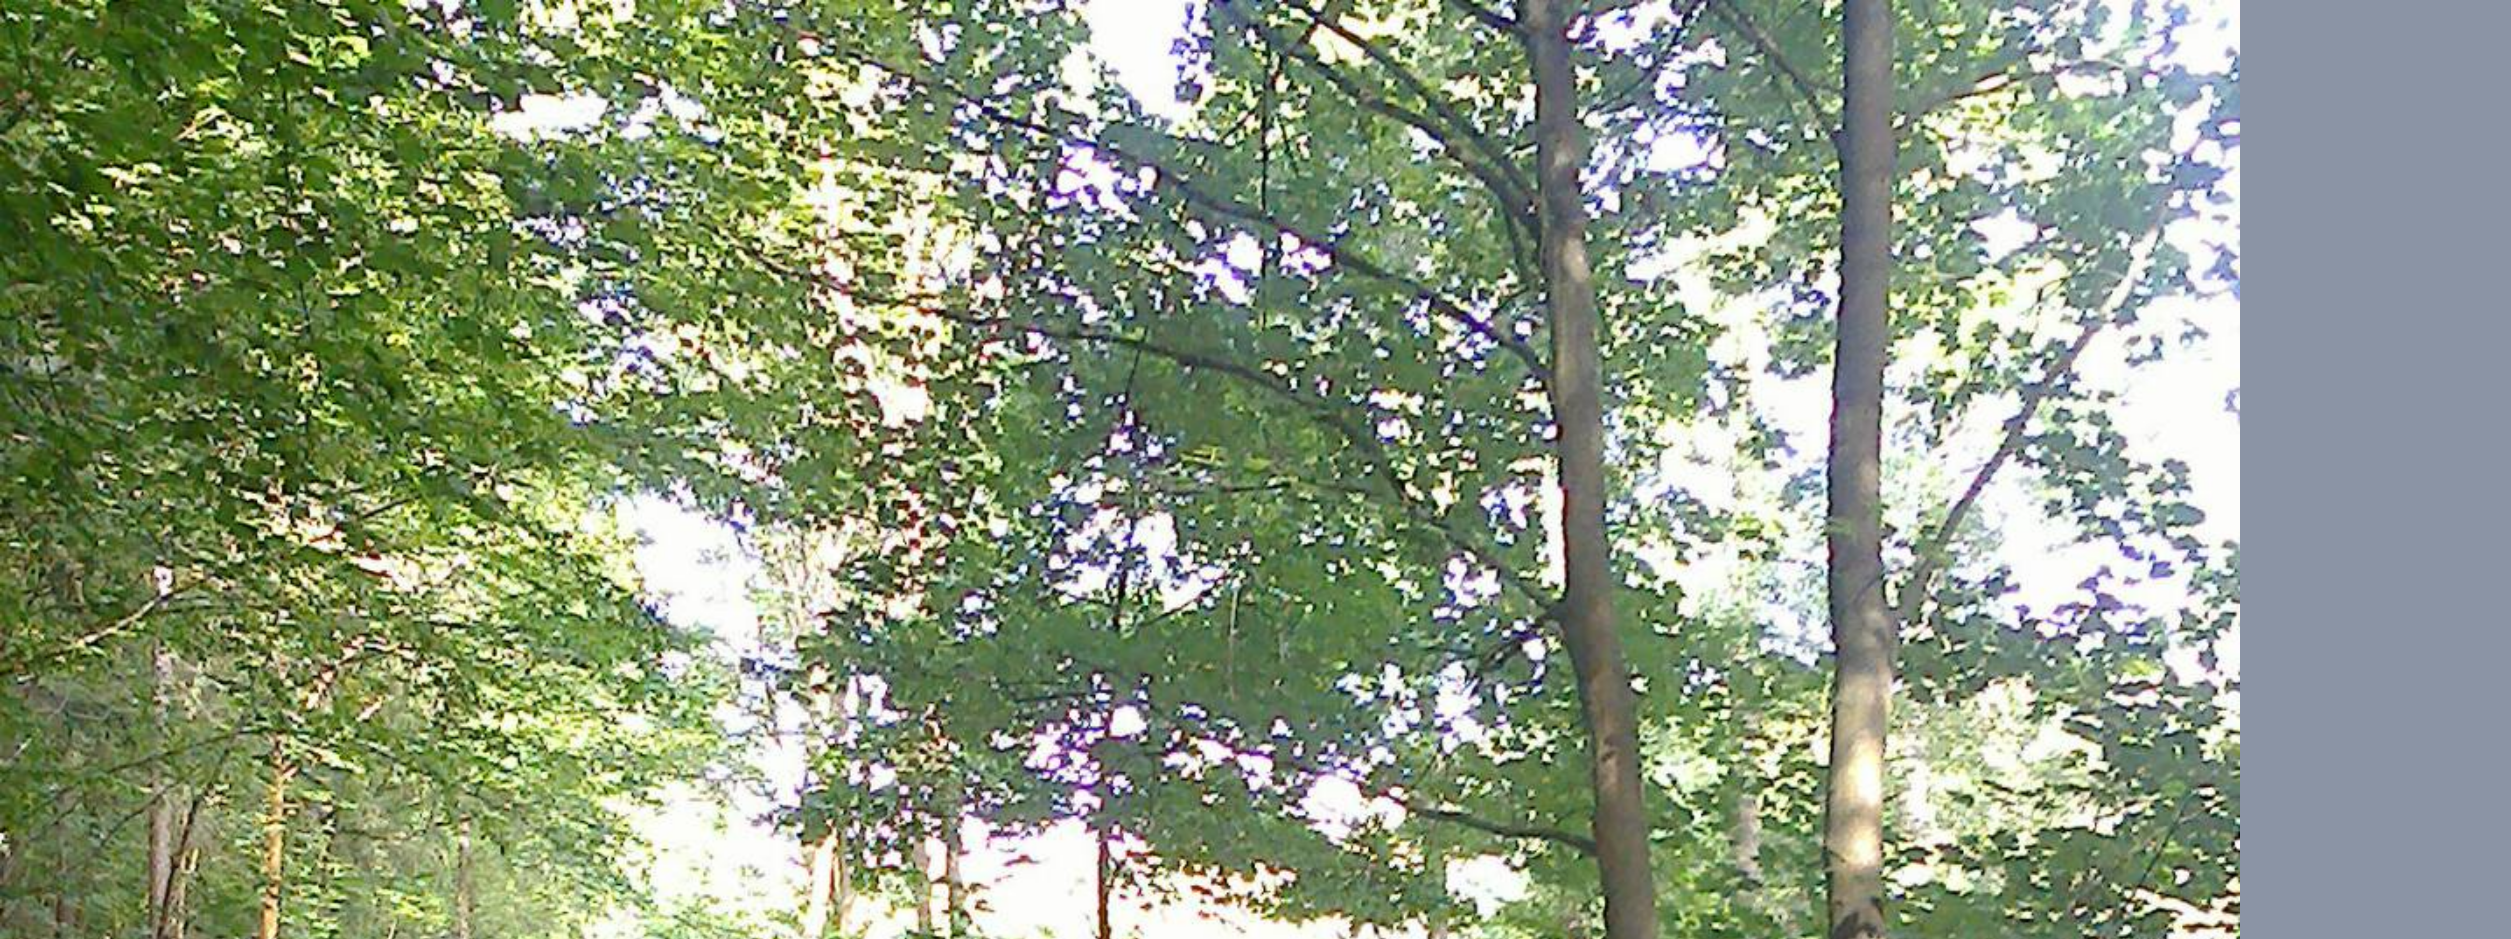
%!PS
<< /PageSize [2511 939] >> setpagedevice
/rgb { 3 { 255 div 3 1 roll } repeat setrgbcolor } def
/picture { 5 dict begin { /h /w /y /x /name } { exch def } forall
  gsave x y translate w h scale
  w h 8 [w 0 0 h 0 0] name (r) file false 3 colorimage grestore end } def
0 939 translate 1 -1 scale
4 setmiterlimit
139 148 165 rgb
0 0 2511 939 rectfill
(img_01.rgb) 0 0 2240 939 picture
showpage
